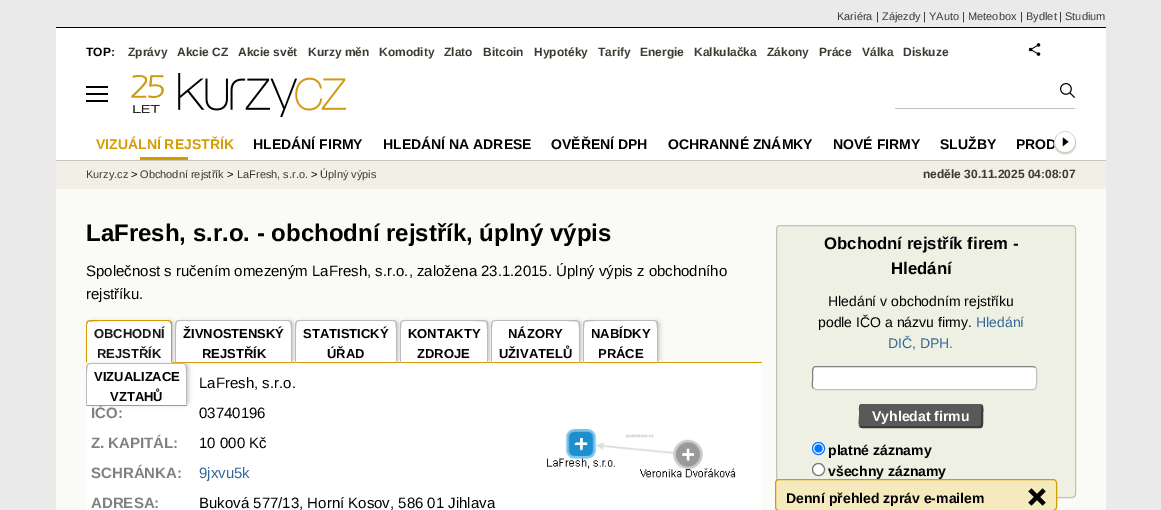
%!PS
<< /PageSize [1161 510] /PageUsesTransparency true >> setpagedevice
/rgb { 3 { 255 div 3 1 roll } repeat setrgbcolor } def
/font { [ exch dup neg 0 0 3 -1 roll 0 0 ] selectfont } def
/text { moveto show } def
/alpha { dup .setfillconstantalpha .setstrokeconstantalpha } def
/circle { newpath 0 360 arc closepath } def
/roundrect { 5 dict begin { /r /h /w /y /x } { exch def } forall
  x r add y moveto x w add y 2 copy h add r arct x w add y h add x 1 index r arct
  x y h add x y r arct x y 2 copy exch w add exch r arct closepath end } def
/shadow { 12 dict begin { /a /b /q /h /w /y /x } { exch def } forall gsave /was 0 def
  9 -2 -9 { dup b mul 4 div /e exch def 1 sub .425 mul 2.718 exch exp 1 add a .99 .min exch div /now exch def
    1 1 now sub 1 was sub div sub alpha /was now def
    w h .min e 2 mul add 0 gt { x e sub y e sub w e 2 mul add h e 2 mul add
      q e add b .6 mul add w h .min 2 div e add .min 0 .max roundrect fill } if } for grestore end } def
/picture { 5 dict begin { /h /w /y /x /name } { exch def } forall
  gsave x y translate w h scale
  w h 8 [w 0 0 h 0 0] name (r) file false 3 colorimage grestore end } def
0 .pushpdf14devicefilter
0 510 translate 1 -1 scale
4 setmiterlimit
234 234 234 rgb
0 0 1161 510 rectfill
250 251 247 rgb
56 189 1050 321 rectfill
0 0 0 rgb
56 27 1050 1 rectfill
255 255 255 rgb
56 28 1050 132 rectfill
0 0 0 rgb
86 86 22 2 rectfill
(img_01.rgb) 131 73 215 44 picture
192 192 192 rgb
895 108 180 1 rectfill
(img_02.rgb) 1060 83 15 15 picture
0 0 0 rgb
86 93 22 2 rectfill
86 100 22 2 rectfill
(img_03.rgb) 1028 43 13 13 picture
242 239 230 rgb
56 161 1050 28 rectfill
212 156 1 rgb
172 362 590 1 rectfill
255 255 255 rgb
86 363 676 147 rectfill
187 187 187 rgb
91 322 82 39 2 2.5 1 shadow
255 255 255 rgb
90 320 moveto 78 0 rlineto 2 0 4 2 4 4 rcurveto 0 39 rlineto -86 0 rlineto 0 -39 rlineto 0 -2 2 -4 4 -4 rcurveto closepath fill
212 156 1 rgb
90 320 moveto -3 1 rlineto 1 1 rlineto 2 -2 60 -1 67 -1 rcurveto 13 0 rlineto 2 1 rlineto 1 -1 rlineto -3 -1 rlineto closepath fill
172 363 moveto 0 -39 rlineto 0 -1 0 -2 -1 -3 rcurveto -1 1 rlineto 2 2 1 35 1 40 rcurveto closepath fill
255 255 255 rgb
172 363 moveto -1 -1 rlineto -84 0 rlineto -1 1 rlineto closepath fill
212 156 1 rgb
86 363 moveto 1 -1 rlineto 0 -5 -1 -38 1 -40 rcurveto -1 -1 rlineto -1 3 rlineto closepath fill
255 255 255 rgb
87 324 84 4 rectfill
187 187 187 rgb
180 322 113 39 2 2.5 1 shadow
255 255 255 rgb
179 320 moveto 109 0 rlineto 2 0 4 2 4 4 rcurveto 0 39 rlineto -117 0 rlineto 0 -39 rlineto 0 -2 2 -4 4 -4 rcurveto closepath fill
187 187 187 rgb
179 320 moveto -3 1 rlineto 1 1 rlineto 2 -1 rlineto 109 0 rlineto 2 1 rlineto 1 -1 rlineto -3 -1 rlineto closepath fill
292 363 moveto 0 -39 rlineto 0 -1 0 -2 -1 -3 rcurveto -1 1 rlineto 2 2 1 35 1 40 rcurveto closepath fill
212 156 1 rgb
292 363 moveto -1 -1 rlineto -115 0 rlineto -1 1 rlineto closepath fill
187 187 187 rgb
175 363 moveto 1 -1 rlineto 0 -5 -1 -38 1 -40 rcurveto -1 -1 rlineto -1 3 rlineto closepath fill
300 322 98 39 2 2.5 1 shadow
255 255 255 rgb
299 320 moveto 94 0 rlineto 2 0 4 2 4 4 rcurveto 0 39 rlineto -102 0 rlineto 0 -39 rlineto 0 -2 2 -4 4 -4 rcurveto closepath fill
187 187 187 rgb
299 320 moveto -3 1 rlineto 1 1 rlineto 2 -1 rlineto 94 0 rlineto 2 1 rlineto 1 -1 rlineto -3 -1 rlineto closepath fill
397 363 moveto 0 -39 rlineto 0 -1 -1 -2 -1 -3 rcurveto -1 1 rlineto 2 2 1 35 1 40 rcurveto closepath fill
212 156 1 rgb
397 363 moveto -1 -1 rlineto -100 0 rlineto -1 1 rlineto closepath fill
187 187 187 rgb
295 363 moveto 1 -1 rlineto 0 -5 -1 -38 1 -40 rcurveto -1 -1 rlineto -1 3 rlineto closepath fill
405 322 84 39 2 2.5 1 shadow
255 255 255 rgb
404 320 moveto 80 0 rlineto 2 0 4 2 4 4 rcurveto 0 39 rlineto -88 0 rlineto 0 -39 rlineto 0 -2 2 -4 4 -4 rcurveto closepath fill
187 187 187 rgb
404 320 moveto -3 1 rlineto 1 1 rlineto 2 -1 rlineto 13 0 rlineto 8 0 67 -1 69 1 rcurveto 1 -1 rlineto -3 -1 rlineto closepath fill
488 363 moveto 0 -39 rlineto 0 -1 0 -2 -1 -3 rcurveto -1 1 rlineto 2 2 1 35 1 40 rcurveto closepath fill
212 156 1 rgb
488 363 moveto -1 -1 rlineto -86 0 rlineto -1 1 rlineto closepath fill
187 187 187 rgb
400 363 moveto 1 -1 rlineto 0 -5 -1 -38 1 -40 rcurveto -1 -1 rlineto -1 3 rlineto closepath fill
496 322 85 39 2 2.5 1 shadow
255 255 255 rgb
495 320 moveto 81 0 rlineto 2 0 4 2 4 4 rcurveto 0 39 rlineto -89 0 rlineto 0 -39 rlineto 0 -2 2 -4 4 -4 rcurveto closepath fill
187 187 187 rgb
495 320 moveto -3 1 rlineto 1 1 rlineto 2 -1 rlineto 13 0 rlineto 8 0 68 -1 70 1 rcurveto 1 -1 rlineto -3 -1 rlineto closepath fill
580 363 moveto 0 -39 rlineto 0 -1 0 -2 -1 -3 rcurveto -1 1 rlineto 2 2 1 35 1 40 rcurveto closepath fill
212 156 1 rgb
580 363 moveto -1 -1 rlineto -87 0 rlineto -1 1 rlineto closepath fill
187 187 187 rgb
491 363 moveto 1 -1 rlineto 0 -5 -1 -38 1 -40 rcurveto -1 -1 rlineto -1 3 rlineto closepath fill
588 322 71 39 2 2.5 1 shadow
255 255 255 rgb
587 320 moveto 67 0 rlineto 2 0 4 2 4 4 rcurveto 0 39 rlineto -75 0 rlineto 0 -39 rlineto 0 -2 2 -4 4 -4 rcurveto closepath fill
187 187 187 rgb
587 320 moveto -3 1 rlineto 1 1 rlineto 2 -2 51 -1 58 -1 rcurveto 11 0 rlineto 2 1 rlineto 1 -1 rlineto -3 -1 rlineto closepath fill
658 363 moveto 0 -39 rlineto 0 -1 0 -2 -1 -3 rcurveto -1 1 rlineto 2 2 1 35 1 40 rcurveto closepath fill
212 156 1 rgb
658 363 moveto -1 -1 rlineto -73 0 rlineto -1 1 rlineto closepath fill
187 187 187 rgb
583 363 moveto 1 -1 rlineto 0 -5 -1 -38 1 -40 rcurveto -1 -1 rlineto -1 3 rlineto closepath fill
91 365 97 39 2 2.5 1 shadow
(img_04.rgb) 547 429 189 49 picture
238 240 227 rgb
776.5 225.5 299 272 3.5 roundrect gsave fill grestore
192 192 192 rgb
stroke
255 255 255 rgb
812 366 225 24 4 roundrect fill
192 192 192 rgb
1035.5 367.5 moveto 2 2 1 5.5 1 8 rcurveto 0 8 rlineto 0 2.5 0 6 -3.5 6 rcurveto -217 0 rlineto -2.5 -1 rlineto stroke
128 128 128 rgb
813.5 388.5 moveto -2 -2 -1 -5.5 -1 -8 rcurveto 0 -8 rlineto 0 -2.5 0 -6 3.5 -6 rcurveto 217 0 rlineto 2.5 1 rlineto stroke
89 89 89 rgb
859 404 124 24 3 roundrect fill
59 59 59 rgb
2 setlinewidth
981.5 405.5 moveto 1.5 1.5 0.5 8.5 0.5 10.5 rcurveto 0 6 rlineto 0 1.5 0.5 5 -2 5 rcurveto -118 0 rlineto -1.5 -0.5 rlineto stroke
89 89 89 rgb
860.5 426.5 moveto -1.5 -1.5 -0.5 -8.5 -0.5 -10.5 rcurveto 0 -6 rlineto 0 -1.5 -0.5 -5 2 -5 rcurveto 118 0 rlineto 1.5 0.5 rlineto stroke
255 255 255 rgb
818.5 448.5 6 circle gsave fill grestore
0 117 255 rgb
1 setlinewidth
stroke
818.5 448.5 4 circle fill
255 255 255 rgb
818.5 469.5 6 circle gsave fill grestore
118 118 118 rgb
stroke
197 198 189 rgb
56 160 1050 1 rectfill
212 156 1 rgb
140 157 48 3 rectfill
244 234 189 rgb
775.5 479.5 281 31 3.5 roundrect gsave fill grestore
212 156 1 rgb
stroke
(img_06.rgb) 1028 488 18 18 picture
/LiberationSans-Regular 11 font
57 60 49 rgb
(Kariéra) 837 20 text
0 0 0 rgb
(|) 876 20 text
57 60 49 rgb
(Zájezdy) 882 20 text
0 0 0 rgb
(|) 923 20 text
57 60 49 rgb
(YAuto) 929 20 text
0 0 0 rgb
(|) 962 20 text
57 60 49 rgb
(Meteobox) 968 20 text
0 0 0 rgb
(|) 1020 20 text
57 60 49 rgb
(Bydlet) 1026 20 text
0 0 0 rgb
(|) 1059 20 text
57 60 49 rgb
(Studium) 1065 20 text
/LiberationSans-Bold 12 font
0 0 0 rgb
(TOP:) 86 56 text
57 60 49 rgb
(Zprávy) 128 56 text
(Akcie CZ) 177 56 text
(Akcie svět) 238 56 text
(Kurzy měn) 308 56 text
(Komodity) 379 56 text
(Zlato) 444 56 text
(Bitcoin) 483 56 text
(Hypotéky) 534 56 text
(Tarify) 598 56 text
(Energie) 640 56 text
(Kalkulačka) 694 56 text
(Zákony) 767 56 text
(Práce) 819 56 text
(Válka) 862 56 text
(Diskuze) 903 56 text
/LiberationSans-Regular 11 font
(Kurzy.cz) 86 178 text
0 0 0 rgb
(>) 131 178 text
57 60 49 rgb
(Obchodní rejstřík) 140 178 text
0 0 0 rgb
(>) 227 178 text
57 60 49 rgb
(LaFresh, s.r.o.) 237 178 text
0 0 0 rgb
(>) 311 178 text
57 60 49 rgb
(Úplný výpis) 320 178 text
/LiberationSans-Bold 12 font
(neděle 30.11.2025 04:08:07) 923 178 text
/LiberationSans-Bold 24 font
0 0 0 rgb
(LaFresh, s.r.o. - obchodní rejstřík, úplný výpis) 86 241 text
/LiberationSans-Regular 15 font
(Společnost s ručením omezeným LaFresh, s.r.o., založena 23.1.2015. Úplný výpis z obchodního) 86 276 text
(rejstříku.) 86 299 text
/LiberationSans-Bold 13 font
22 22 20 rgb
(OBCHODNÍ) 94 338 text
(REJSTŘÍK) 97 358 text
0 0 0 rgb
(ŽIVNOSTENSKÝ) 183 338 text
(REJSTŘÍK) 202 358 text
(STATISTICKÝ) 303 338 text
(ÚŘAD) 327 358 text
(KONTAKTY) 408 338 text
(ZDROJE) 417 358 text
(NÁZORY) 508 338 text
(UŽIVATELŮ) 499 358 text
(NABÍDKY) 591 338 text
(PRÁCE) 598 358 text
/LiberationSans-Regular 15 font
(LaFresh, s.r.o.) 199 388 text
/LiberationSans-Bold 15 font
128 128 128 rgb
(IČO:) 91 418 text
255 255 255 rgb
90 363 moveto 93 0 rlineto 2 0 4 2 4 4 rcurveto 0 39 rlineto -101 0 rlineto 0 -39 rlineto 0 -2 2 -4 4 -4 rcurveto closepath fill
/LiberationSans-Bold 13 font
0 0 0 rgb
(VZTAHŮ) 110 401 text
(VIZUALIZACE) 94 381 text
187 187 187 rgb
90 363 moveto -3 1 rlineto 1 1 rlineto 2 -1 rlineto 93 0 rlineto 2 1 rlineto 1 -1 rlineto -3 -1 rlineto closepath fill
187 406 moveto 0 -39 rlineto 0 -1 -1 -2 -1 -3 rcurveto -1 1 rlineto 2 2 1 35 1 40 rcurveto closepath fill
212 156 1 rgb
187 406 moveto -1 -1 rlineto -99 0 rlineto -1 1 rlineto closepath fill
187 187 187 rgb
86 406 moveto 1 -1 rlineto 0 -5 -1 -38 1 -40 rcurveto -1 -1 rlineto -1 3 rlineto closepath fill
/LiberationSans-Regular 15 font
0 0 0 rgb
(03740196) 199 418 text
/LiberationSans-Bold 15 font
128 128 128 rgb
(Z. KAPITÁL:) 91 448 text
/LiberationSans-Regular 15 font
0 0 0 rgb
(10 000 Kč) 199 448 text
/LiberationSans-Bold 15 font
128 128 128 rgb
(SCHRÁNKA:) 91 478 text
/LiberationSans-Regular 15 font
51 102 153 rgb
(9jxvu5k) 199 478 text
/LiberationSans-Bold 15 font
128 128 128 rgb
(ADRESA:) 91 508 text
/LiberationSans-Regular 15 font
0 0 0 rgb
(Buková 577/13, Horní Kosov, 586 01 Jihlava) 199 508 text
/LiberationSans-Bold 16.75 font
(Obchodní rejstřík firem -) 824 249 text
(Hledání) 891 274 text
/LiberationSans-Regular 14 font
(Hledání v obchodním rejstříku) 828 306 text
(podle IČO a názvu firmy.) 818 327 text
51 102 153 rgb
(Hledání) 976 327 text
(DIČ, DPH.) 888 348 text
/LiberationSans-Bold 14 font
255 255 255 rgb
(Vyhledat firmu) 872 421 text
0 0 0 rgb
(platné záznamy) 828 455 text
(všechny záznamy) 828 476 text
212 156 1 rgb
(VIZUÁLNÍ REJSTŘÍK) 96 149 text
0 0 0 rgb
(HLEDÁNÍ FIRMY) 253 149 text
(HLEDÁNÍ NA ADRESE) 383 149 text
(OVĚŘENÍ DPH) 551 149 text
(OCHRANNÉ ZNÁMKY) 668 149 text
(NOVÉ FIRMY) 833 149 text
(SLUŽBY) 940 149 text
(PROD) 1016 149 text
(img_05.rgb) 1053 131 23 24 picture
(Denní přehled zpráv e-mailem) 786 503 text
.poppdf14devicefilter showpage
